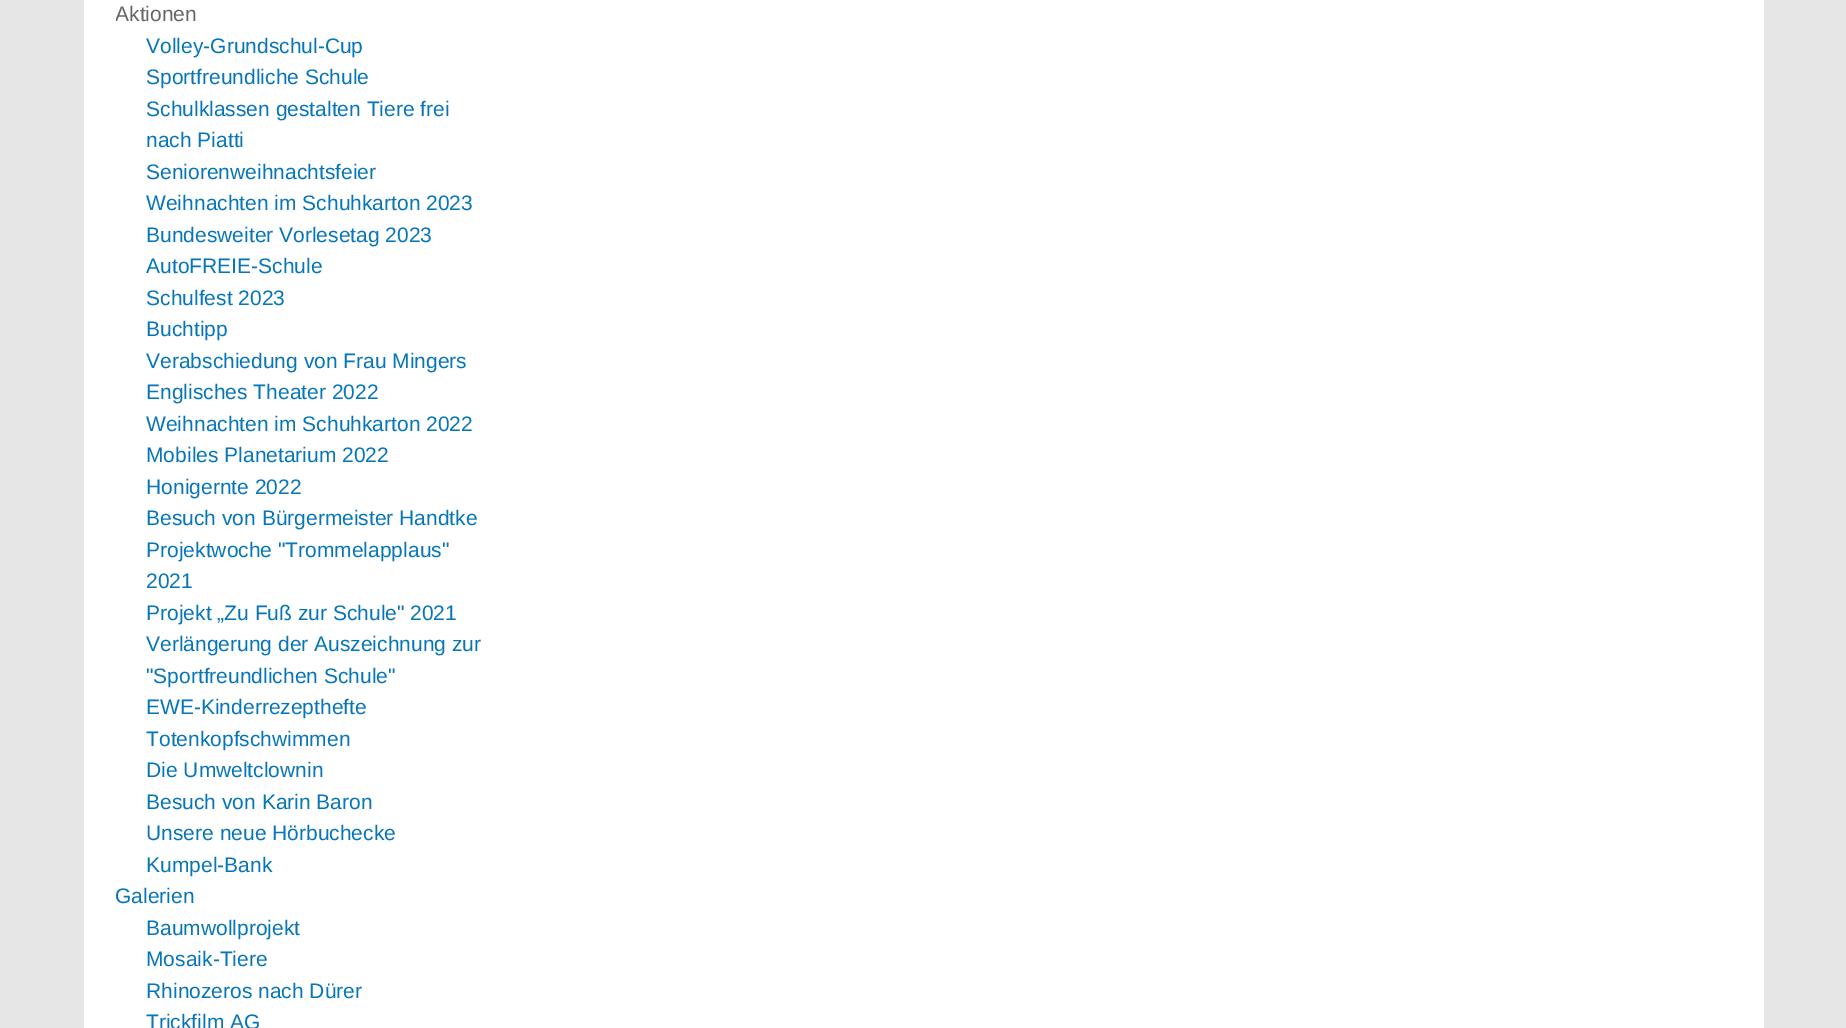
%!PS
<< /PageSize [1846 1028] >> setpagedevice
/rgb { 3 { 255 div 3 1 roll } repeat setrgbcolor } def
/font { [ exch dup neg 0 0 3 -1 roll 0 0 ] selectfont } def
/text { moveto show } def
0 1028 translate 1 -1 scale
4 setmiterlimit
230 230 230 rgb
0 0 1846 1028 rectfill
255 255 255 rgb
84 0 1680 1028 rectfill
gsave
116 0 378 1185 rectclip
/LiberationSans-Regular 21 font
102 102 102 rgb
(Aktionen) 115 21 text
grestore
/LiberationSans-Regular 21 font
6 118 185 rgb
(Volley-Grundschul-Cup) 146 53 text
(Sportfreundliche Schule) 146 84 text
(Schulklassen gestalten Tiere frei) 146 116 text
(nach Piatti) 146 147 text
(Seniorenweihnachtsfeier) 146 179 text
(Weihnachten im Schuhkarton 2023) 146 210 text
(Bundesweiter Vorlesetag 2023) 146 242 text
(AutoFREIE-Schule) 146 273 text
(Schulfest 2023) 146 305 text
(Buchtipp) 146 336 text
(Verabschiedung von Frau Mingers) 146 368 text
(Englisches Theater 2022) 146 399 text
(Weihnachten im Schuhkarton 2022) 146 431 text
(Mobiles Planetarium 2022) 146 462 text
(Honigernte 2022) 146 494 text
(Besuch von Bürgermeister Handtke) 146 525 text
(Projektwoche "Trommelapplaus") 146 557 text
(2021) 146 588 text
(Projekt „Zu Fuß zur Schule" 2021) 146 620 text
(Verlängerung der Auszeichnung zur) 146 651 text
("Sportfreundlichen Schule") 146 683 text
(EWE-Kinderrezepthefte) 146 714 text
(Totenkopfschwimmen) 146 746 text
(Die Umweltclownin) 146 777 text
(Besuch von Karin Baron) 146 809 text
(Unsere neue Hörbuchecke) 146 840 text
(Kumpel-Bank) 146 872 text
gsave
116 0 378 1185 rectclip
(Galerien) 115 903 text
grestore
(Baumwollprojekt) 146 935 text
(Mosaik-Tiere) 146 966 text
(Rhinozeros nach Dürer) 146 998 text
(Trickfilm AG) 146 1029 text
showpage
